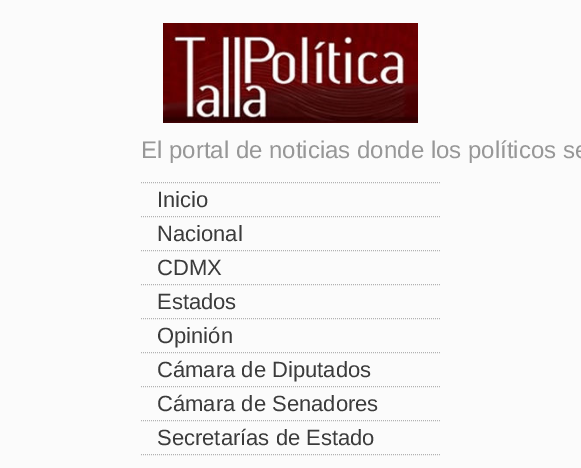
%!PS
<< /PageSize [581 468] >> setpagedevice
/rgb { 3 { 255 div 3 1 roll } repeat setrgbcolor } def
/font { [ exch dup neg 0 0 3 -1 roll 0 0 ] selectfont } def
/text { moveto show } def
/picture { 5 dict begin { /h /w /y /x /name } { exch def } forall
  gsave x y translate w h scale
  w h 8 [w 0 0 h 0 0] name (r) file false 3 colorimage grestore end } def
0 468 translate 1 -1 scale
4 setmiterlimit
251 251 251 rgb
0 0 581 468 rectfill
(img_01.rgb) 163 23 255 100 picture
178 178 178 rgb
[1 1] 0 setdash
141 182.5 moveto 300 0 rlineto stroke
141 216.5 moveto 300 0 rlineto stroke
141 250.5 moveto 300 0 rlineto stroke
141 284.5 moveto 300 0 rlineto stroke
141 318.5 moveto 300 0 rlineto stroke
141 352.5 moveto 300 0 rlineto stroke
141 386.5 moveto 300 0 rlineto stroke
141 420.5 moveto 300 0 rlineto stroke
141 454.5 moveto 300 0 rlineto stroke
/LiberationSans-Regular 24 font
151 151 151 rgb
(El portal de noticias donde los políticos se) 141 158 text
/LiberationSans-Regular 22 font
59 59 59 rgb
(Inicio) 157 207 text
(Nacional) 157 241 text
(CDMX) 157 275 text
(Estados) 157 309 text
(Opinión) 157 343 text
(Cámara de Diputados) 157 377 text
(Cámara de Senadores) 157 411 text
(Secretarías de Estado) 157 445 text
showpage
